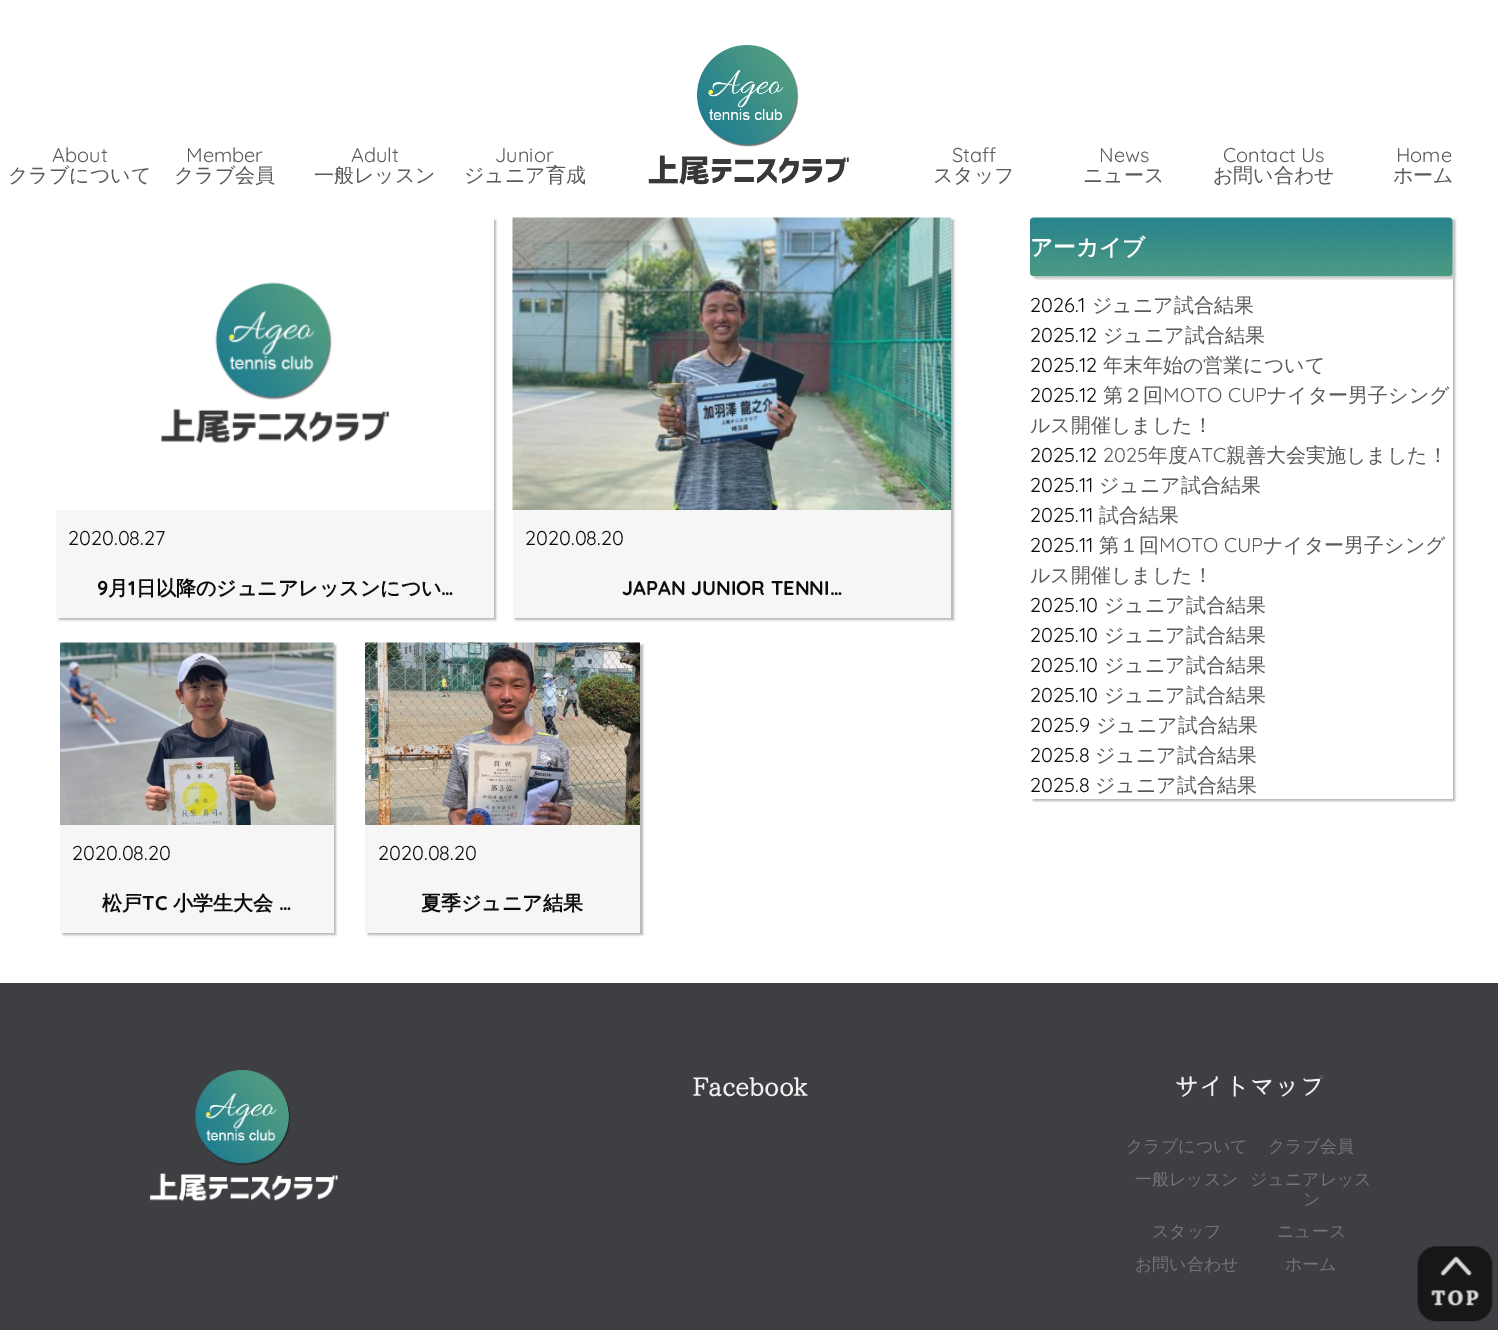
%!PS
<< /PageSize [1498 1330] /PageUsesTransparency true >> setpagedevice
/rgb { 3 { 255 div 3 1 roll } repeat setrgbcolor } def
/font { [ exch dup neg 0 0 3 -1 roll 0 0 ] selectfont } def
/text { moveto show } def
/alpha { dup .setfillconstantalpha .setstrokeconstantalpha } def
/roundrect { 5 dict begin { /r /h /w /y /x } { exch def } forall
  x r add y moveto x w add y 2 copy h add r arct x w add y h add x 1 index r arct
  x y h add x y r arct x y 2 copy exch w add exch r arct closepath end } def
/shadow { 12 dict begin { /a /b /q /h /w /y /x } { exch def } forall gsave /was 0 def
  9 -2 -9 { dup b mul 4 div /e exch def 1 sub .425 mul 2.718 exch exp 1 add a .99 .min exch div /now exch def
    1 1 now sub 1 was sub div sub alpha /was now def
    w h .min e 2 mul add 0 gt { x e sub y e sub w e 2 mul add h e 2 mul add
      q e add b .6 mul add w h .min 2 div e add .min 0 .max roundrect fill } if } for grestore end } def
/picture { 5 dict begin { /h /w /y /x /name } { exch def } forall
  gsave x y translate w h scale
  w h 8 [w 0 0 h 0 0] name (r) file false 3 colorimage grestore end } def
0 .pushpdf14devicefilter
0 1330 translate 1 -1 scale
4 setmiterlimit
255 255 255 rgb
0 0 1498 1330 rectfill
(img_01.rgb) 648 45 201 140 picture
13 13 13 rgb
59 220 437 400 0 1 0.3 shadow
246 246 246 rgb
56 218 438 400 rectfill
(img_02.rgb) 56 218 438 292 picture
13 13 13 rgb
515 220 439 400 0 1 0.3 shadow
246 246 246 rgb
513 510 438 108 rectfill
(img_03.rgb) 512 217 440 293 picture
13 13 13 rgb
63 645 273 290 0 1 0.3 shadow
246 246 246 rgb
60 643 274 290 rectfill
(img_04.rgb) 60 642 274 183 picture
13 13 13 rgb
368 645 275 290 0 1 0.3 shadow
246 246 246 rgb
365 825 275 108 rectfill
(img_05.rgb) 365 642 275 183 picture
gsave
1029 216 moveto 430 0 rlineto 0 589 rlineto -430 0 rlineto closepath 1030 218 moveto 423 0 rlineto 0 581 rlineto -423 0 rlineto closepath eoclip newpath
13 13 13 rgb
1033 220 422 581 0 1 0.3 shadow
grestore
200 200 200 rgb
1033 220 422 59 4 1 1 shadow
(img_06.rgb) 1029 217 424 60 picture
62 63 67 rgb
0 983 1498 347 rectfill
(img_07.rgb) 150 1070 188 132 picture
(img_08.rgb) 1417 1246 76 76 picture
/Quicksand-Regular 20 font
89 89 89 rgb
(About) 52 162 text
/WenQuanYiZenHei-Medium 20 font
(クラブについて) 8 182 text
/Quicksand-Regular 20 font
(Member) 186 162 text
/WenQuanYiZenHei-Medium 20 font
(クラブ会員) 174 182 text
/Quicksand-Regular 20 font
(Adult) 351 162 text
/WenQuanYiZenHei-Medium 20 font
(一般レッスン) 314 182 text
/Quicksand-Regular 20 font
(Junior) 495 162 text
/WenQuanYiZenHei-Medium 20 font
(ジュニア育成) 464 182 text
/Quicksand-Regular 20 font
(Staff) 952 162 text
/WenQuanYiZenHei-Medium 20 font
(スタッフ) 933 182 text
/Quicksand-Regular 20 font
(News) 1099 162 text
/WenQuanYiZenHei-Medium 20 font
(ニュース) 1083 182 text
/Quicksand-Regular 20 font
(Contact Us) 1223 162 text
/WenQuanYiZenHei-Medium 20 font
(お問い合わせ) 1213 182 text
/Quicksand-Regular 20 font
(Home) 1396 162 text
/WenQuanYiZenHei-Medium 20 font
(ホーム) 1393 182 text
/Quicksand-Regular 20 font
13 13 13 rgb
(2020.08.27) 68 545 text
/Quicksand-Bold 20 font
(9) 97 595 text
/WenQuanYiZenHei-Bold 20 font
(月) 108 595 text
/Quicksand-Bold 20 font
(1) 128 595 text
/WenQuanYiZenHei-Bold 20 font
(日以降のジュニアレッスンについ) 136 595 text
/Quicksand-Bold 20 font
(…) 441 595 text
/Quicksand-Regular 20 font
(2020.08.20) 525 545 text
/Quicksand-Bold 20 font
(JAPAN JUNIOR TENNI…) 622 595 text
/Quicksand-Regular 20 font
(2020.08.20) 72 860 text
/WenQuanYiZenHei-Bold 20 font
(松戸) 102 910 text
/Quicksand-Bold 20 font
(TC) 142 910 text
/WenQuanYiZenHei-Bold 20 font
(小学生大会) 173 910 text
/Quicksand-Bold 20 font
(…) 279 910 text
/Quicksand-Regular 20 font
(2020.08.20) 378 860 text
/WenQuanYiZenHei-Bold 20 font
(夏季ジュニア結果) 421 910 text
/WenQuanYiZenHei-Bold 22.5 font
255 255 255 rgb
(アーカイブ) 1030 255 text
/Quicksand-Regular 20 font
13 13 13 rgb
(2026.1) 1030 312 text
/WenQuanYiZenHei-Medium 20 font
89 89 89 rgb
(ジュニア試合結果) 1092 312 text
/Quicksand-Regular 20 font
13 13 13 rgb
(2025.12) 1030 342 text
/WenQuanYiZenHei-Medium 20 font
89 89 89 rgb
(ジュニア試合結果) 1103 342 text
/Quicksand-Regular 20 font
13 13 13 rgb
(2025.12) 1030 372 text
/WenQuanYiZenHei-Medium 20 font
89 89 89 rgb
(年末年始の営業について) 1103 372 text
/Quicksand-Regular 20 font
13 13 13 rgb
(2025.12) 1030 402 text
/WenQuanYiZenHei-Medium 20 font
89 89 89 rgb
(第２回) 1103 402 text
/Quicksand-Regular 20 font
(MOTO CUP) 1163 402 text
/WenQuanYiZenHei-Medium 20 font
(ナイター男子シング) 1267 402 text
(ルス開催しました！) 1030 432 text
/Quicksand-Regular 20 font
13 13 13 rgb
(2025.12) 1030 462 text
89 89 89 rgb
(2025) 1103 462 text
/WenQuanYiZenHei-Medium 20 font
(年度) 1148 462 text
/Quicksand-Regular 20 font
(ATC) 1188 462 text
/WenQuanYiZenHei-Medium 20 font
(親善大会実施しました！) 1226 462 text
/Quicksand-Regular 20 font
13 13 13 rgb
(2025.11) 1030 492 text
/WenQuanYiZenHei-Medium 20 font
89 89 89 rgb
(ジュニア試合結果) 1099 492 text
/Quicksand-Regular 20 font
13 13 13 rgb
(2025.11) 1030 522 text
/WenQuanYiZenHei-Medium 20 font
89 89 89 rgb
(試合結果) 1099 522 text
/Quicksand-Regular 20 font
13 13 13 rgb
(2025.11) 1030 552 text
/WenQuanYiZenHei-Medium 20 font
89 89 89 rgb
(第１回) 1099 552 text
/Quicksand-Regular 20 font
(MOTO CUP) 1159 552 text
/WenQuanYiZenHei-Medium 20 font
(ナイター男子シング) 1263 552 text
(ルス開催しました！) 1030 582 text
/Quicksand-Regular 20 font
13 13 13 rgb
(2025.10) 1030 612 text
/WenQuanYiZenHei-Medium 20 font
89 89 89 rgb
(ジュニア試合結果) 1104 612 text
/Quicksand-Regular 20 font
13 13 13 rgb
(2025.10) 1030 642 text
/WenQuanYiZenHei-Medium 20 font
89 89 89 rgb
(ジュニア試合結果) 1104 642 text
/Quicksand-Regular 20 font
13 13 13 rgb
(2025.10) 1030 672 text
/WenQuanYiZenHei-Medium 20 font
89 89 89 rgb
(ジュニア試合結果) 1104 672 text
/Quicksand-Regular 20 font
13 13 13 rgb
(2025.10) 1030 702 text
/WenQuanYiZenHei-Medium 20 font
89 89 89 rgb
(ジュニア試合結果) 1104 702 text
/Quicksand-Regular 20 font
13 13 13 rgb
(2025.9) 1030 732 text
/WenQuanYiZenHei-Medium 20 font
89 89 89 rgb
(ジュニア試合結果) 1096 732 text
/Quicksand-Regular 20 font
13 13 13 rgb
(2025.8) 1030 762 text
/WenQuanYiZenHei-Medium 20 font
89 89 89 rgb
(ジュニア試合結果) 1095 762 text
/Quicksand-Regular 20 font
13 13 13 rgb
(2025.8) 1030 792 text
/WenQuanYiZenHei-Medium 20 font
89 89 89 rgb
(ジュニア試合結果) 1095 792 text
/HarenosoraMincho-Bold 25 font
240 240 240 rgb
(Facebook) 692 1096 text
(サイトマップ) 1174 1096 text
/WenQuanYiZenHei-Medium 17 font
116 116 119 rgb
(クラブについて) 1126 1152 text
(クラブ会員) 1268 1152 text
(一般レッスン) 1135 1185 text
(ジュニアレッス) 1250 1185 text
(ン) 1303 1205 text
(スタッフ) 1152 1237 text
(ニュース) 1277 1237 text
(お問い合わせ) 1135 1270 text
(ホーム) 1285 1270 text
.poppdf14devicefilter showpage
